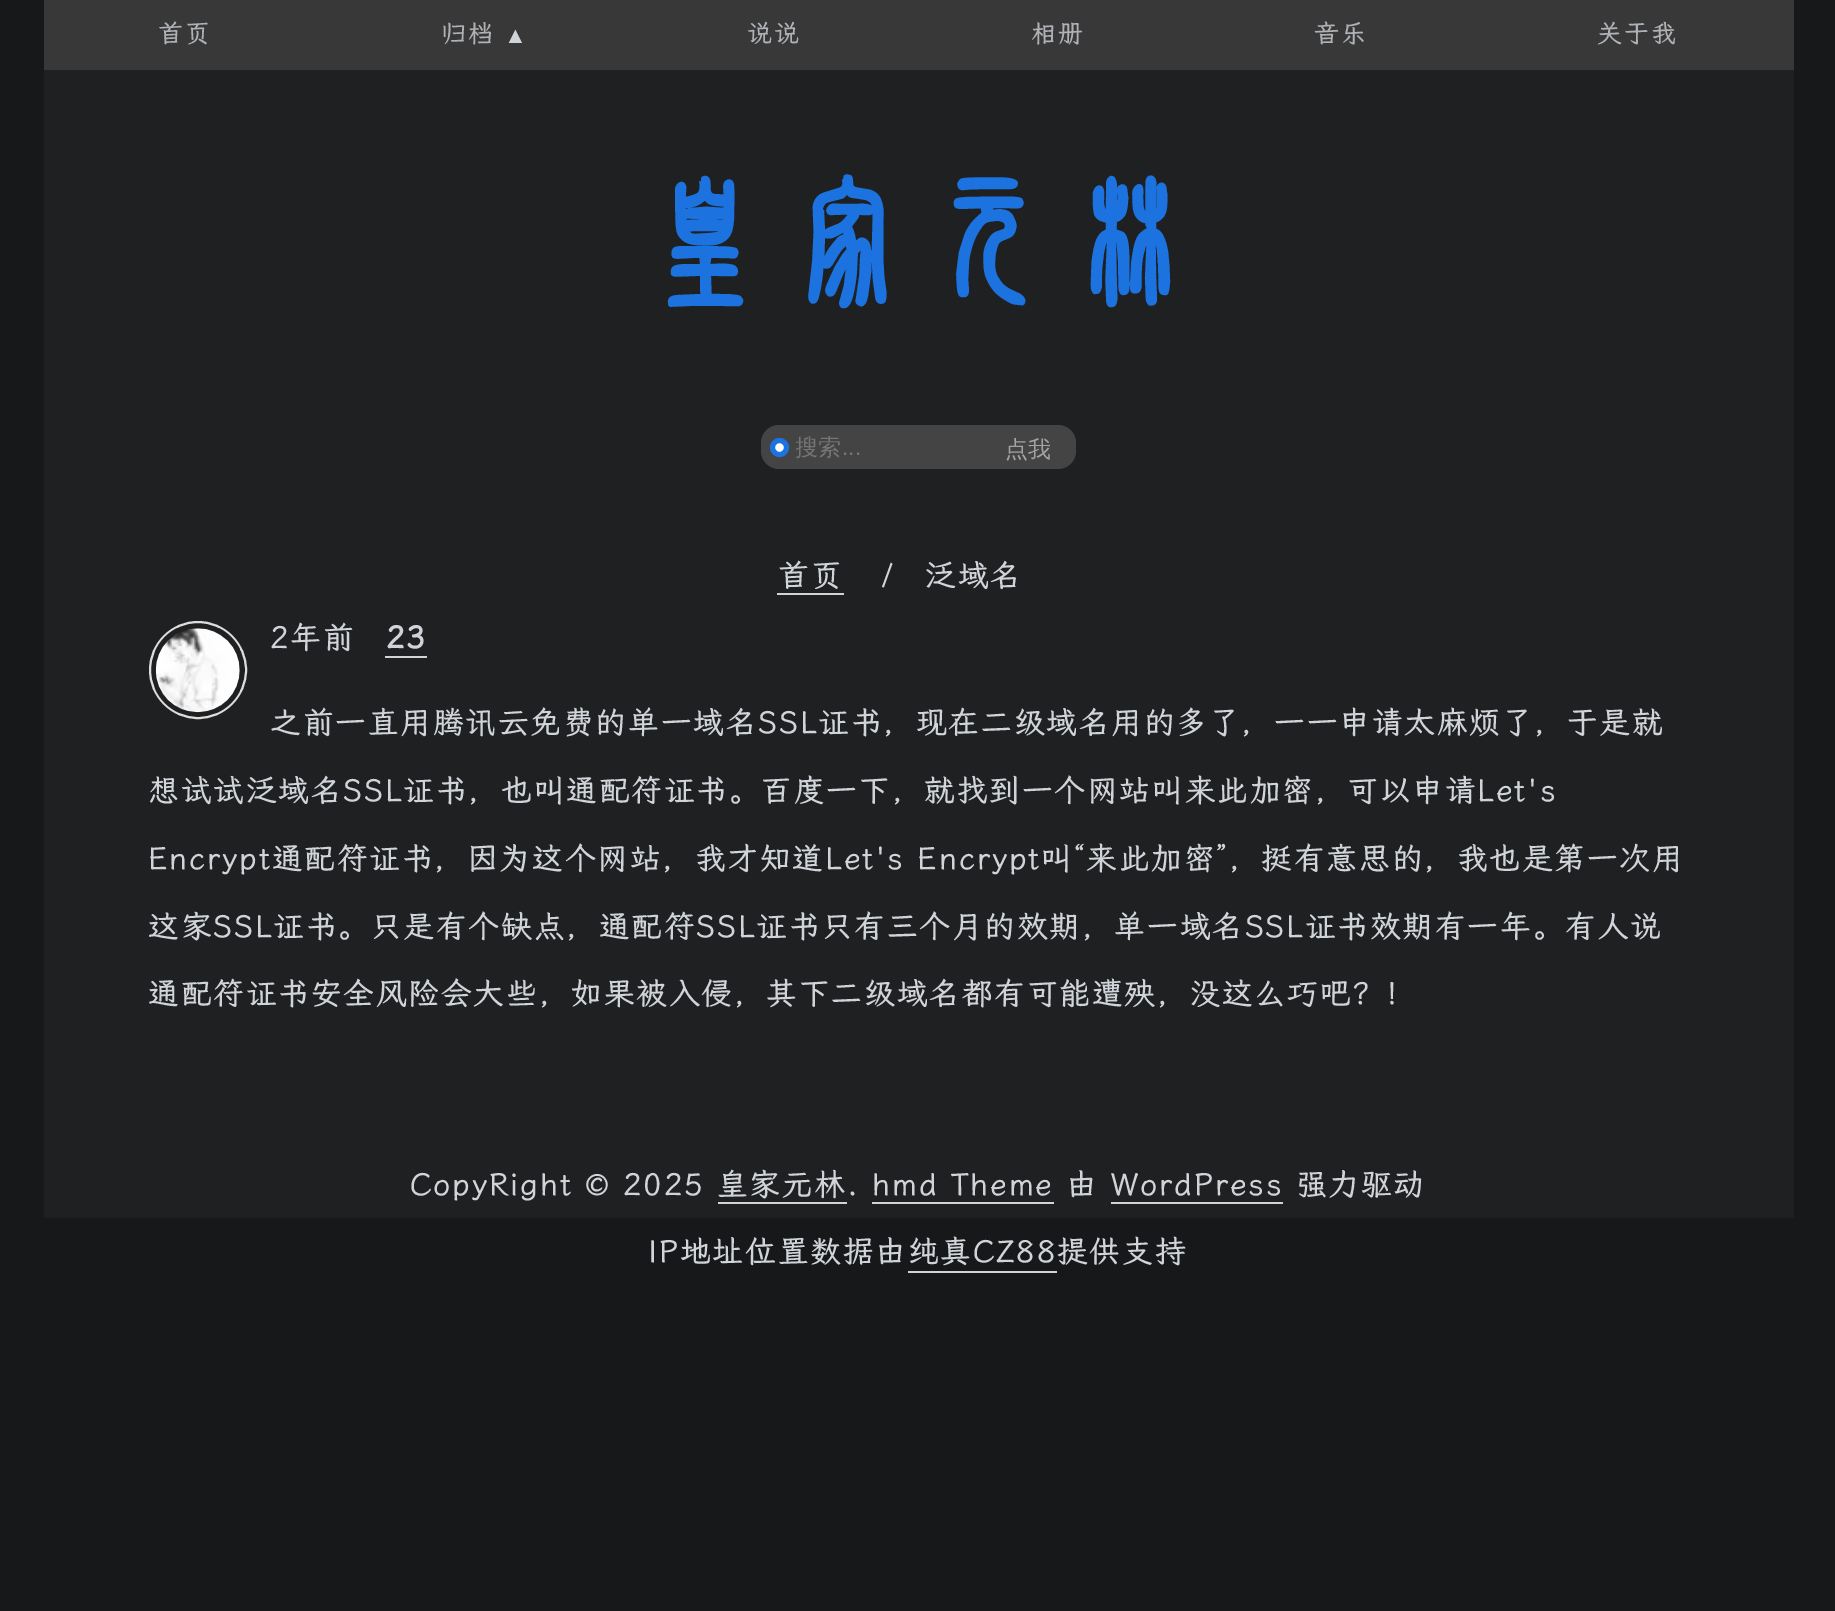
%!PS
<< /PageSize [1835 1611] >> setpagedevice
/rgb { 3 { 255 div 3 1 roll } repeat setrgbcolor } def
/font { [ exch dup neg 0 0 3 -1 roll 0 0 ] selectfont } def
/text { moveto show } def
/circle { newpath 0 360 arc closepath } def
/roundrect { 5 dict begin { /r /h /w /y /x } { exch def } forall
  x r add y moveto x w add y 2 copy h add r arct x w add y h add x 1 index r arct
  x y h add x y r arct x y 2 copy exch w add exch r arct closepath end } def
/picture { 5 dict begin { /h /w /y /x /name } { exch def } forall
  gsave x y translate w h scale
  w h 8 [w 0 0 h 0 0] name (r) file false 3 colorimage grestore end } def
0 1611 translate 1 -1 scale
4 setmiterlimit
23 24 26 rgb
0 0 1835 1611 rectfill
31 32 34 rgb
44 70 1750 1148 rectfill
56 56 56 rgb
44 0 1750 70 rectfill
68 68 68 rgb
761 425 315 44 18 roundrect fill
255 255 255 rgb
779.5 447.5 7 circle gsave fill grestore
28 115 224 rgb
5 setlinewidth
stroke
208 211 216 rgb
777 593 67 2 rectfill
221 221 221 rgb
2 setlinewidth
198 670 48 circle stroke
(img_01.rgb) 155 628 85 85 picture
208 211 216 rgb
385 656 42 2 rectfill
718 1202 129 2 rectfill
872 1202 182 2 rectfill
1111 1202 172 2 rectfill
908 1271 149 2 rectfill
/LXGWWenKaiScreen-Regular 25 font
174 177 181 rgb
158 42 moveto 1.75 0 (首页) ashow
441 42 moveto 1.75 0 (归档) ashow
/LiberationSans-Italic 23 font
208 211 216 rgb
(▲) 504 43 text
/LXGWWenKaiScreen-Regular 25 font
174 177 181 rgb
747 42 moveto 1.75 0 (说说) ashow
1031 42 moveto 1.75 0 (相册) ashow
1314 42 moveto 1.75 0 (音乐) ashow
1597 42 moveto 1.75 0 (关于我) ashow
/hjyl-Bold 140 font
28 115 224 rgb
634 285 moveto 1.75 0 (皇家元林) ashow
gsave
796 432 258 32 rectclip
/WenQuanYiZenHei-Medium 23 font
117 117 117 rgb
(搜索) 795 455 text
grestore
/LiberationSans-Regular 23 font
117 117 117 rgb
(...) 842 455 text
/WenQuanYiZenHei-Medium 23 font
164 164 164 rgb
(点我) 1005 457 text
/LXGWWenKaiScreen-Regular 30.8 font
208 211 216 rgb
778 586 moveto 1.75 0 (首页) ashow
882 586 moveto 1.75 0 (/) ashow
925 586 moveto 1.75 0 (泛域名) ashow
270 648 moveto 1.75 0 (2年前) ashow
/LXGWWenKaiScreen-Bold 30.8 font
386 648 moveto 1.75 0 (23) ashow
/LXGWWenKaiScreen-Regular 30.8 font
270 733 moveto 1.75 0 (之前一直用腾讯云免费的单一域名SSL证书，现在二级域名用的多了，一一申请太麻烦了，于是就) ashow
148 801 moveto 1.75 0 (想试试泛域名SSL证书，也叫通配符证书。百度一下，就找到一个网站叫来此加密，可以申请Let's) ashow
148 869 moveto 1.75 0 (Encrypt通配符证书，因为这个网站，我才知道Let's Encrypt叫“来此加密”，挺有意思的，我也是第一次用) ashow
148 937 moveto 1.75 0 (这家SSL证书。只是有个缺点，通配符SSL证书只有三个月的效期，单一域名SSL证书效期有一年。有人说) ashow
148 1004 moveto 1.75 0 (通配符证书安全风险会大些，如果被入侵，其下二级域名都有可能遭殃，没这么巧吧？！) ashow
410 1195 moveto 1.75 0 (CopyRight © 2025 皇家元林. hmd Theme 由 WordPress 强力驱动) ashow
648 1262 moveto 1.75 0 (IP地址位置数据由纯真CZ88提供支持) ashow
showpage
